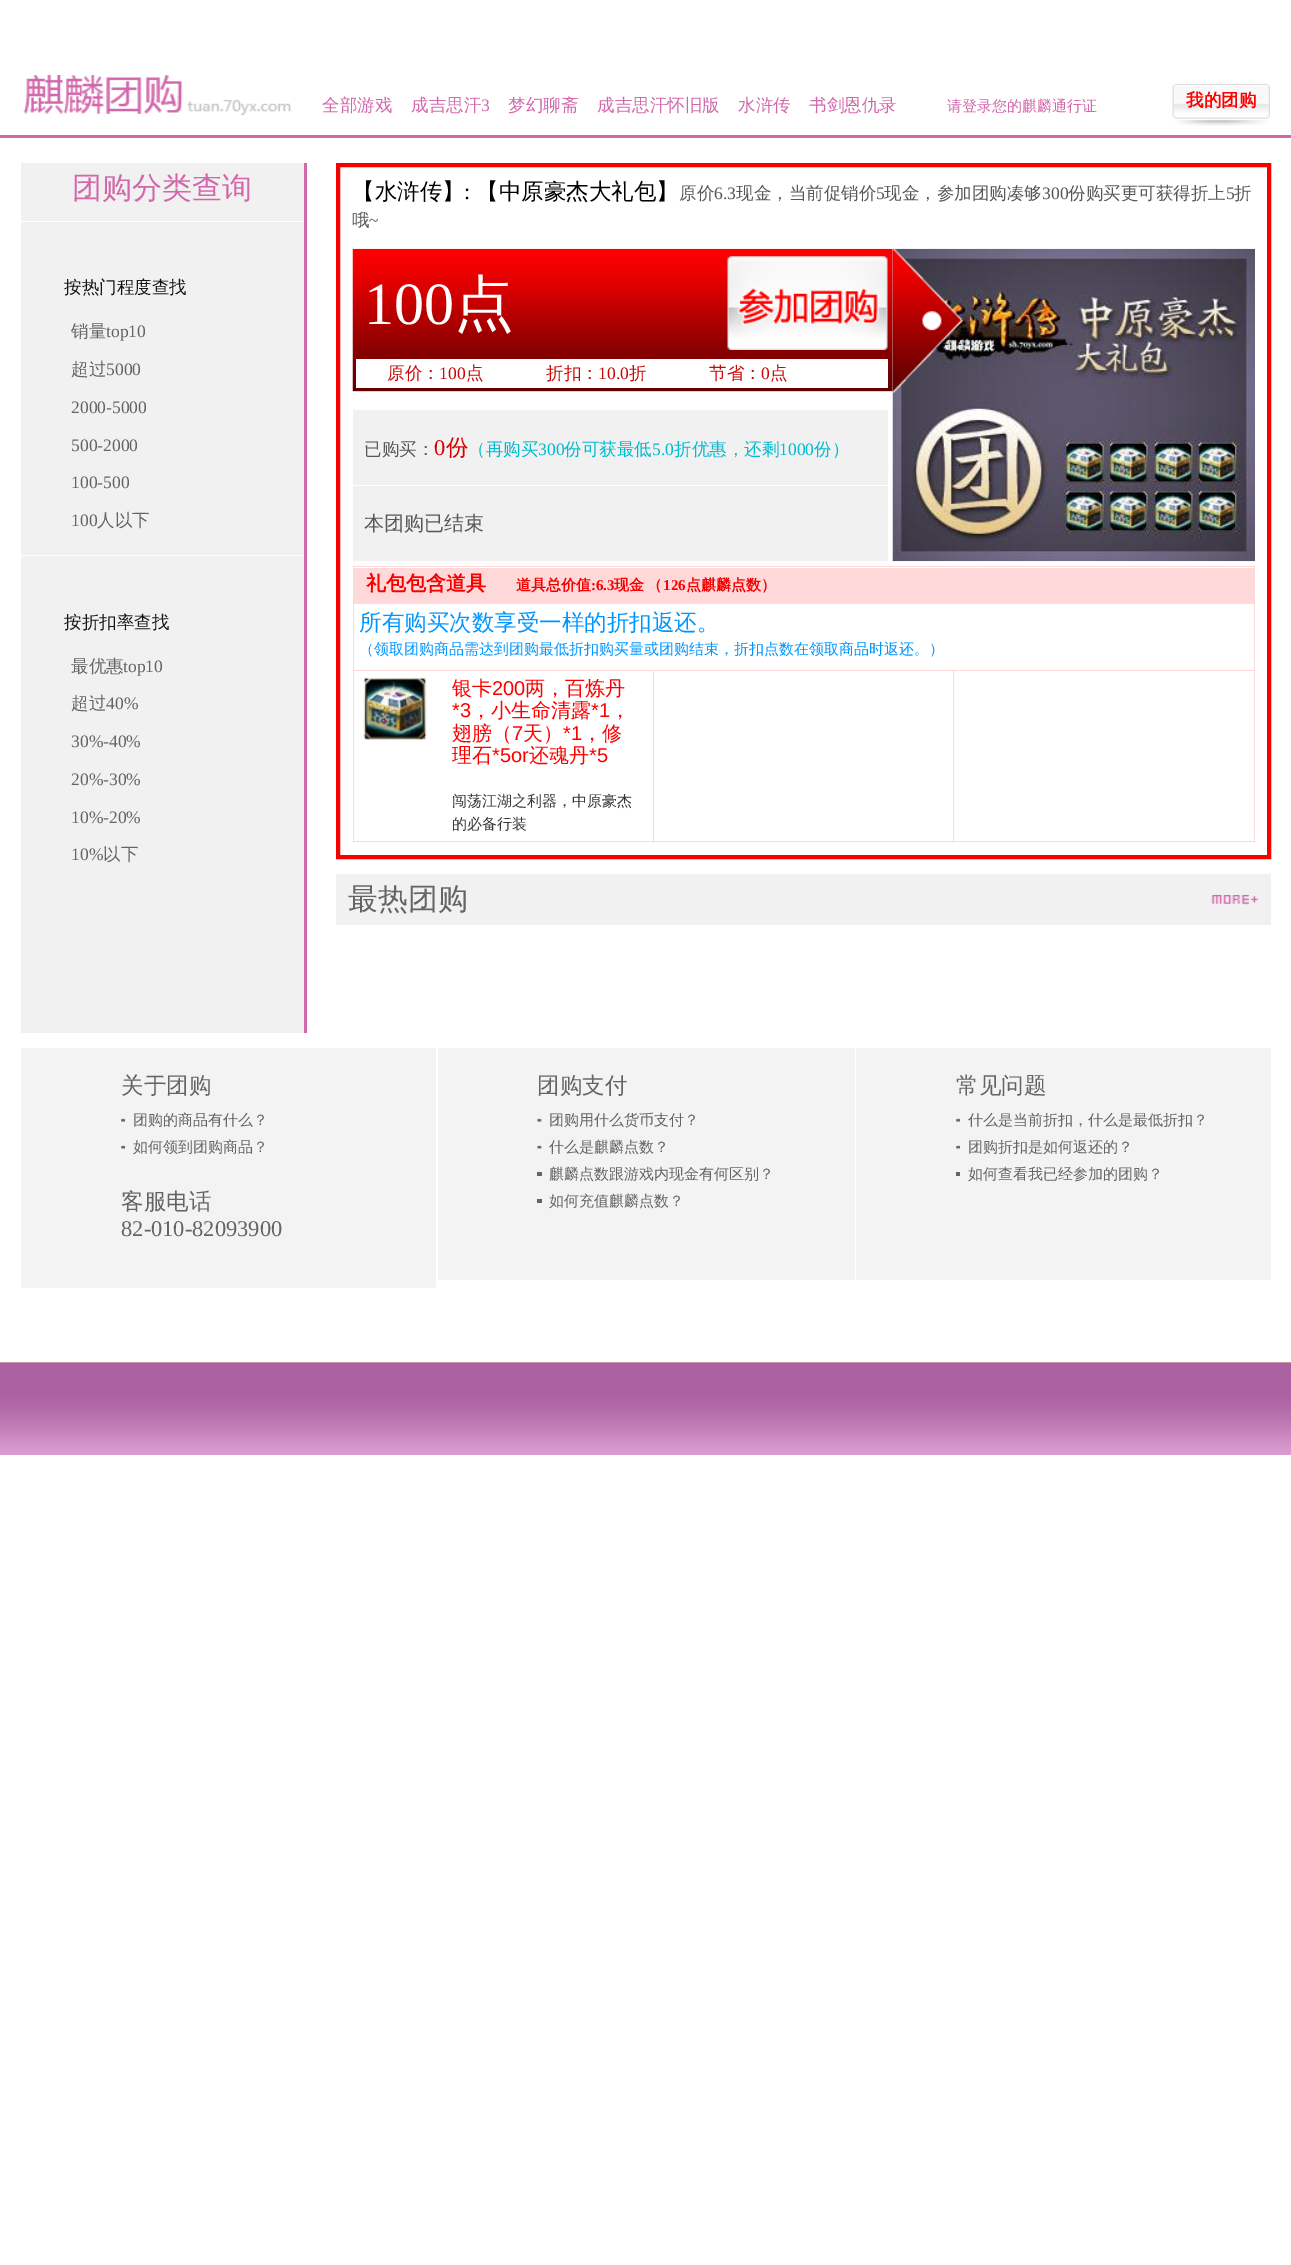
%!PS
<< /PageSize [1291 2265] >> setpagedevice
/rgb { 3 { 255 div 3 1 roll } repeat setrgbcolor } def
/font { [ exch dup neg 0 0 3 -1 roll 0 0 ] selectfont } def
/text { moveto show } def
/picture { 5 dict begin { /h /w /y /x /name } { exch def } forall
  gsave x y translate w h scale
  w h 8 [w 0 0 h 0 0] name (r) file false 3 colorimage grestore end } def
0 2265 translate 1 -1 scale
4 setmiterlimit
255 255 255 rgb
0 0 1291 2265 rectfill
210 104 171 rgb
0 135 1291 3 rectfill
(img_01.rgb) 23 75 269 40 picture
(img_02.rgb) 1172 83 98 43 picture
241 241 241 rgb
21 163 283 870 rectfill
210 104 171 rgb
304 163 3 870 rectfill
255 255 255 rgb
21 221 283 1 rectfill
21 555 283 1 rectfill
247 0 0 rgb
4 setlinewidth
338 165 931 692 rectstroke
(img_03.rgb) 352 248 541 144 picture
(img_04.rgb) 727 256 161 94 picture
(img_06.rgb) 892 248 363 314 picture
(img_05.rgb) 892 248 71 145 picture
255 255 255 rgb
356 359 532 29 rectfill
241 241 241 rgb
353 410 535 75 rectfill
353 486 535 75 rectfill
255 217 217 rgb
354 568 900 35 rectfill
353 566 902 1 rectfill
353 603 902 1 rectfill
953 670 302 1 rectfill
1254 670 1 173 rectfill
1254 603 1 68 rectfill
1254 566 1 38 rectfill
953 841 302 1 rectfill
953 670 1 173 rectfill
653 670 301 1 rectfill
653 841 301 1 rectfill
653 670 1 173 rectfill
353 670 301 1 rectfill
353 841 301 1 rectfill
353 670 1 173 rectfill
353 603 1 68 rectfill
353 566 1 38 rectfill
(img_07.rgb) 363 677 64 63 picture
241 241 241 rgb
336 874 935 51 rectfill
(img_08.rgb) 1211 895 48 10 picture
243 243 243 rgb
21 1048 415 240 rectfill
(img_09.rgb) 121 1118 4 4 picture
(img_10.rgb) 121 1145 4 4 picture
438 1048 417 232 rectfill
(img_11.rgb) 537 1118 5 4 picture
(img_12.rgb) 537 1145 5 4 picture
100 100 100 rgb
537 1172 5 4 rectfill
537 1199 5 4 rectfill
243 243 243 rgb
856 1048 415 232 rectfill
(img_09.rgb) 956 1118 4 4 picture
(img_10.rgb) 956 1145 4 4 picture
100 100 100 rgb
956 1172 4 4 rectfill
(img_13.rgb) 0 1362 1291 93 picture
/WenQuanYiZenHei-Medium 17.5 font
210 104 171 rgb
(全部游戏) 322 111 text
(成吉思汗) 411 111 text
/LiberationSerif-Regular 17.5 font
(3) 481 111 text
/WenQuanYiZenHei-Medium 17.5 font
(梦幻聊斋) 508 111 text
(成吉思汗怀旧版) 597 111 text
(水浒传) 738 111 text
(书剑恩仇录) 809 111 text
/WenQuanYiZenHei-Medium 15 font
(请登录您的麒麟通行证) 947 111 text
/WenQuanYiZenHei-Bold 17.5 font
255 0 0 rgb
(我的团购) 1186 106 text
/WenQuanYiZenHei-Medium 30 font
210 104 171 rgb
(团购分类查询) 72 198 text
/WenQuanYiZenHei-Medium 17.5 font
21 21 21 rgb
(按热门程度查找) 64 293 text
100 100 100 rgb
(销量) 71 337 text
/LiberationSerif-Regular 17.5 font
(top10) 106 337 text
/WenQuanYiZenHei-Medium 17.5 font
(超过) 71 375 text
/LiberationSerif-Regular 17.5 font
(5000) 106 375 text
(2000-5000) 71 413 text
(500-2000) 71 451 text
(100-500) 71 488 text
(100) 71 526 text
/WenQuanYiZenHei-Medium 17.5 font
(人以下) 97 526 text
21 21 21 rgb
(按折扣率查找) 64 628 text
100 100 100 rgb
(最优惠) 71 672 text
/LiberationSerif-Regular 17.5 font
(top10) 123 672 text
/WenQuanYiZenHei-Medium 17.5 font
(超过) 71 709 text
/LiberationSerif-Regular 17.5 font
(40%) 106 709 text
(30%-40%) 71 747 text
(20%-30%) 71 785 text
(10%-20%) 71 823 text
(10%) 71 860 text
/WenQuanYiZenHei-Medium 17.5 font
(以下) 103 860 text
/WenQuanYiZenHei-Medium 22.5 font
0 0 0 rgb
(【水浒传】) 352 199 text
/LiberationSerif-Regular 22.5 font
(:) 464 199 text
/WenQuanYiZenHei-Medium 22.5 font
(【中原豪杰大礼包】) 476 199 text
/WenQuanYiZenHei-Medium 17.5 font
87 87 87 rgb
(原价) 679 199 text
/LiberationSerif-Regular 17.5 font
(6.3) 714 199 text
/WenQuanYiZenHei-Medium 17.5 font
(现金，当前促销价) 736 199 text
/LiberationSerif-Regular 17.5 font
(5) 876 199 text
/WenQuanYiZenHei-Medium 17.5 font
(现金，参加团购凑够) 884 199 text
/LiberationSerif-Regular 17.5 font
(300) 1042 199 text
/WenQuanYiZenHei-Medium 17.5 font
(份购买更可获得折上) 1068 199 text
/LiberationSerif-Regular 17.5 font
(5) 1226 199 text
/WenQuanYiZenHei-Medium 17.5 font
(折) 1234 199 text
(哦) 352 226 text
/LiberationSerif-Regular 17.5 font
(~) 369 226 text
/LiberationSerif-Regular 60 font
255 255 255 rgb
(100) 364 324 text
/WenQuanYiZenHei-Medium 60 font
(点) 454 324 text
/WenQuanYiZenHei-Medium 17.5 font
202 6 6 rgb
(原价：) 387 379 text
/LiberationSerif-Regular 17.5 font
(100) 439 379 text
/WenQuanYiZenHei-Medium 17.5 font
(点) 466 379 text
(折扣：) 546 379 text
/LiberationSerif-Regular 17.5 font
(10.0) 598 379 text
/WenQuanYiZenHei-Medium 17.5 font
(折) 629 379 text
(节省：) 709 379 text
/LiberationSerif-Regular 17.5 font
(0) 761 379 text
/WenQuanYiZenHei-Medium 17.5 font
(点) 770 379 text
87 87 87 rgb
(已购买：) 364 455 text
/LiberationSerif-Regular 22.5 font
217 0 0 rgb
(0) 434 455 text
/WenQuanYiZenHei-Medium 22.5 font
(份) 446 455 text
/WenQuanYiZenHei-Medium 17.5 font
0 186 208 rgb
(（再购买) 468 455 text
/LiberationSerif-Regular 17.5 font
(300) 538 455 text
/WenQuanYiZenHei-Medium 17.5 font
(份可获最低) 564 455 text
/LiberationSerif-Regular 17.5 font
(5.0) 652 455 text
/WenQuanYiZenHei-Medium 17.5 font
(折优惠，还剩) 674 455 text
/LiberationSerif-Regular 17.5 font
(1000) 779 455 text
/WenQuanYiZenHei-Medium 17.5 font
(份）) 814 455 text
/WenQuanYiZenHei-Medium 20 font
87 87 87 rgb
(本团购已结束) 364 530 text
/WenQuanYiZenHei-Bold 20 font
247 0 0 rgb
(礼包包含道具) 366 590 text
/WenQuanYiZenHei-Bold 15 font
(道具总价值) 516 590 text
/LiberationSerif-Bold 15 font
(:6.3) 591 590 text
/WenQuanYiZenHei-Bold 15 font
614 590 moveto -1 0 32 (现金 （) widthshow
/LiberationSerif-Bold 15 font
(126) 663 590 text
/WenQuanYiZenHei-Bold 15 font
(点麒麟点数）) 686 590 text
/WenQuanYiZenHei-Medium 22.5 font
0 150 255 rgb
(所有购买次数享受一样的折扣返还。) 359 630 text
/WenQuanYiZenHei-Medium 15 font
(（领取团购商品需达到团购最低折扣购买量或团购结束，折扣点数在领取商品时返还。）) 359 654 text
/WenQuanYiZenHei-Medium 20 font
255 0 0 rgb
(银卡) 452 695 text
/LiberationSans-Regular 20 font
(200) 492 695 text
/WenQuanYiZenHei-Medium 20 font
(两，百炼丹) 525 695 text
/LiberationSans-Regular 20 font
(*3) 452 717 text
/WenQuanYiZenHei-Medium 20 font
(，小生命清露) 471 717 text
/LiberationSans-Regular 20 font
(*1) 591 717 text
/WenQuanYiZenHei-Medium 20 font
(，) 610 717 text
(翅膀（) 452 740 text
/LiberationSans-Regular 20 font
(7) 512 740 text
/WenQuanYiZenHei-Medium 20 font
(天）) 523 740 text
/LiberationSans-Regular 20 font
(*1) 563 740 text
/WenQuanYiZenHei-Medium 20 font
(，修) 582 740 text
(理石) 452 762 text
/LiberationSans-Regular 20 font
(*5or) 492 762 text
/WenQuanYiZenHei-Medium 20 font
(还魂丹) 529 762 text
/LiberationSans-Regular 20 font
(*5) 589 762 text
/WenQuanYiZenHei-Medium 15 font
56 56 56 rgb
(闯荡江湖之利器，中原豪杰) 452 806 text
(的必备行装) 452 829 text
/WenQuanYiZenHei-Medium 30 font
100 100 100 rgb
(最热团购) 348 909 text
/WenQuanYiZenHei-Medium 22.5 font
(关于团购) 121 1093 text
/WenQuanYiZenHei-Medium 15 font
(团购的商品有什么？) 133 1125 text
(如何领到团购商品？) 133 1152 text
/WenQuanYiZenHei-Medium 22.5 font
(客服电话) 121 1209 text
/LiberationSerif-Regular 22.5 font
(82-010-82093900) 121 1236 text
/WenQuanYiZenHei-Medium 22.5 font
(团购支付) 537 1093 text
/WenQuanYiZenHei-Medium 15 font
(团购用什么货币支付？) 549 1125 text
(什么是麒麟点数？) 549 1152 text
(麒麟点数跟游戏内现金有何区别？) 549 1179 text
(如何充值麒麟点数？) 549 1206 text
/WenQuanYiZenHei-Medium 22.5 font
(常见问题) 956 1093 text
/WenQuanYiZenHei-Medium 15 font
(什么是当前折扣，什么是最低折扣？) 968 1125 text
(团购折扣是如何返还的？) 968 1152 text
(如何查看我已经参加的团购？) 968 1179 text
showpage
